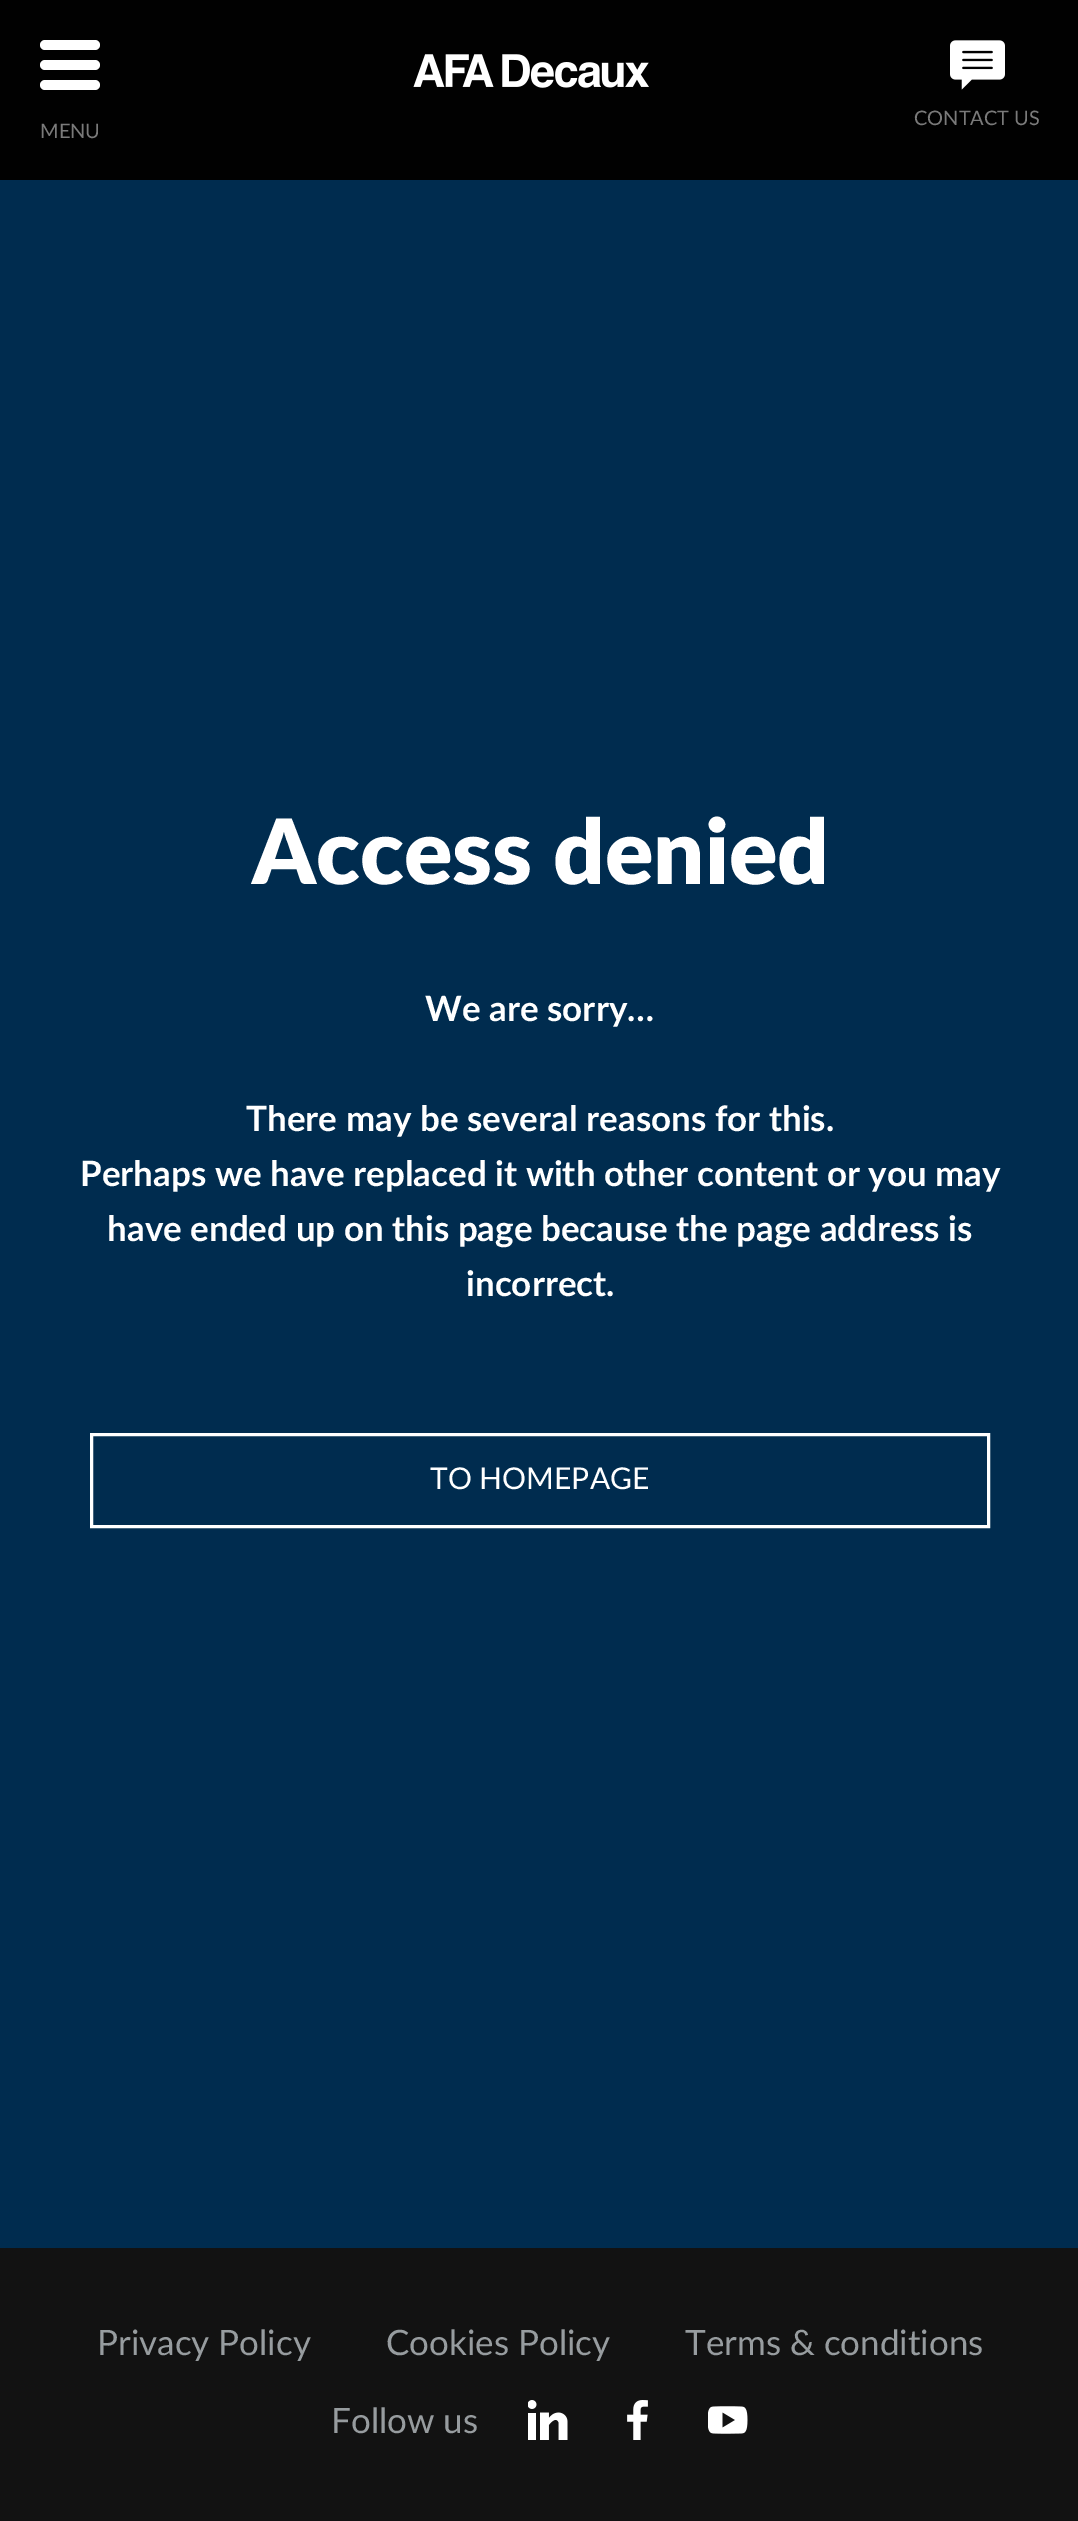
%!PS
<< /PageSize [1078 2521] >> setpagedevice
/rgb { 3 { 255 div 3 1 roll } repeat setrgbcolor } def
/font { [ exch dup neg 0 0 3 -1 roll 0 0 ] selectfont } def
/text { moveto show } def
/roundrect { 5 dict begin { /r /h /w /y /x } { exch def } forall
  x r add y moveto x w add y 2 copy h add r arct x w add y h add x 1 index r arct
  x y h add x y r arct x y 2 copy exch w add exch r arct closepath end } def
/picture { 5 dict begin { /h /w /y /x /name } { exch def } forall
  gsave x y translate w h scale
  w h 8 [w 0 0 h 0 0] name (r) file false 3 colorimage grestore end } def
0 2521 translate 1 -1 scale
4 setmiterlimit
18 18 18 rgb
0 0 1078 2521 rectfill
1 1 1 rgb
0 0 1078 180 rectfill
(img_01.rgb) 413 54 236 34 picture
(img_02.rgb) 950 40 55 50 picture
255 255 255 rgb
40 40 60 10 5 roundrect fill
40 60 60 10 5 roundrect fill
40 80 60 10 5 roundrect fill
0 44 79 rgb
0 180 1078 2068 rectfill
255 255 255 rgb
3 setlinewidth
91.5 1434.5 897 92 rectstroke
(img_03.rgb) 528 2400 40 40 picture
(img_04.rgb) 627 2400 21 40 picture
(img_05.rgb) 708 2406 40 28 picture
/Lato-Regular 20 font
122 122 122 rgb
(CONTACT US) 914 125 text
(MENU) 40 138 text
/Lato-Black 90 font
255 255 255 rgb
(Access denied) 252 884 text
/Lato-Bold 35 font
(We are sorry…) 425 1021 text
(There may be several reasons for this.) 246 1131 text
(Perhaps we have replaced it with other content or you may) 80 1186 text
(have ended up on this page because the page address is) 107 1241 text
(incorrect.) 466 1296 text
/Lato-Regular 30 font
(TO HOMEPAGE) 430 1489 text
/Lato-Regular 35 font
151 156 159 rgb
(Privacy Policy) 97 2355 text
(Cookies Policy) 386 2355 text
(Terms & conditions) 685 2355 text
(Follow us) 331 2433 text
showpage
